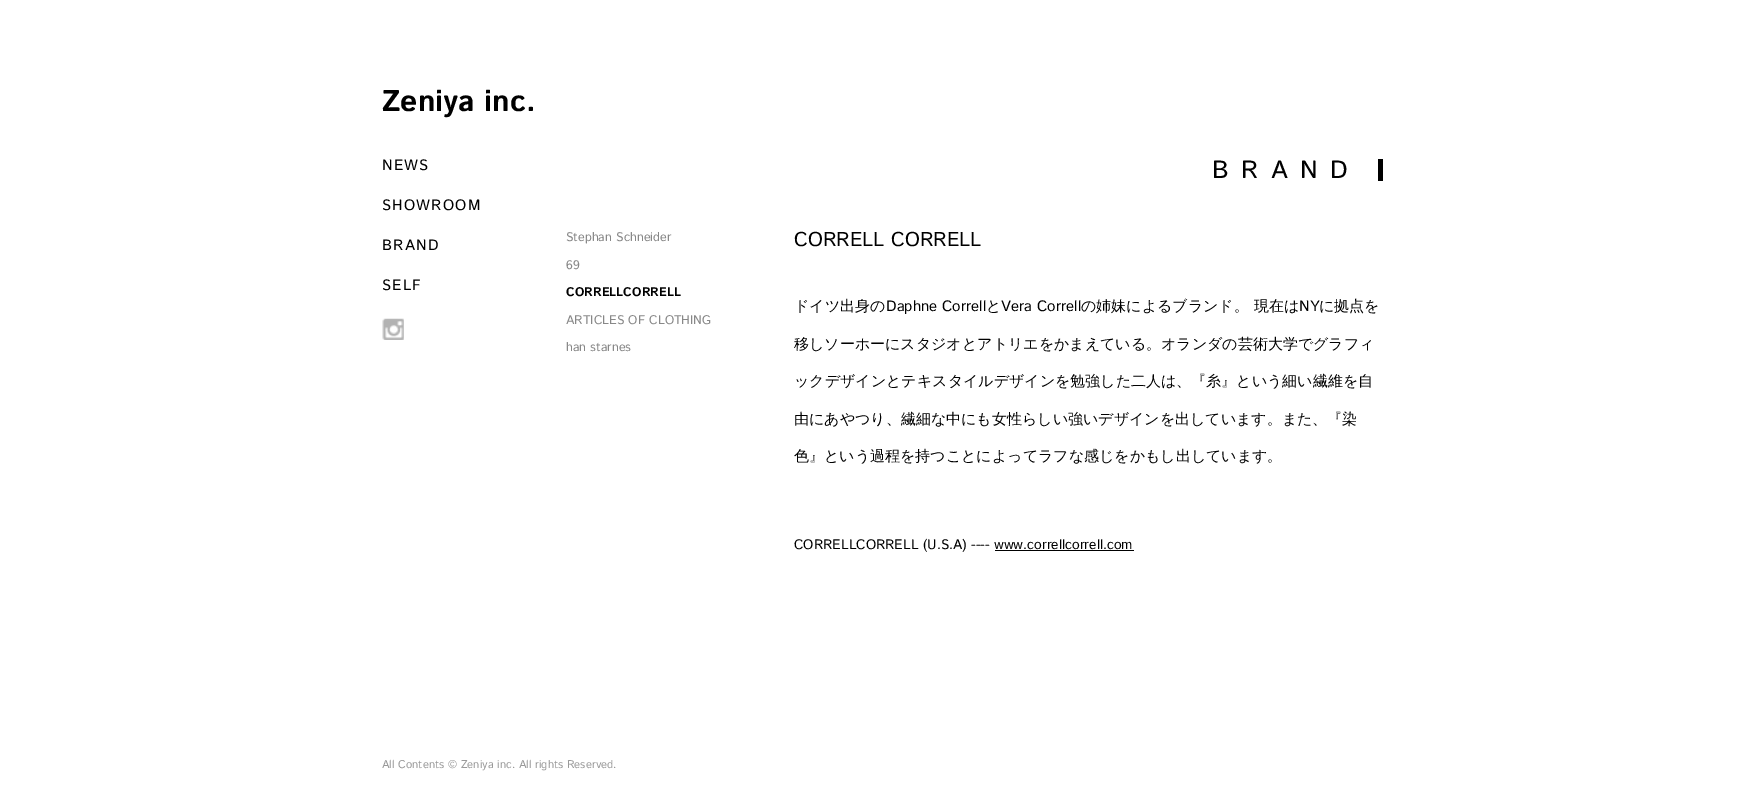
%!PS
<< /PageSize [1763 803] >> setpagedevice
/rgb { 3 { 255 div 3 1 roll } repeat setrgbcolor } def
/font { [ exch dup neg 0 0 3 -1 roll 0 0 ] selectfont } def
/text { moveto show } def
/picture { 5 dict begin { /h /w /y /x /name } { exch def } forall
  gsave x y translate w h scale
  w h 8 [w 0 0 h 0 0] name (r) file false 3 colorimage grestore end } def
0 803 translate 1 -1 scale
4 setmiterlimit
255 255 255 rgb
0 0 1763 803 rectfill
(img_01.rgb) 382 318 22 22 picture
0 0 0 rgb
1378 159 5 22 rectfill
995 550 139 1 rectfill
/IstokWeb-Bold 30 font
(Zeniya inc.) 382 111 text
/IstokWeb-Regular 15 font
382 170 moveto 1.25 0 (NEWS) ashow
382 210 moveto 1.25 0 (SHOWROOM) ashow
382 250 moveto 1.25 0 (BRAND) ashow
382 290 moveto 1.25 0 (SELF) ashow
/IstokWeb-Regular 25 font
1212 178 moveto 12.5 0 (BRAND) ashow
/IstokWeb-Regular 12.5 font
136 136 136 rgb
(Stephan Schneider) 566 241 text
(69) 566 269 text
/IstokWeb-Bold 12.5 font
0 0 0 rgb
(CORRELLCORRELL) 566 296 text
/IstokWeb-Regular 12.5 font
136 136 136 rgb
(ARTICLES OF CLOTHING) 566 324 text
(han starnes) 566 351 text
/IstokWeb-Regular 20 font
0 0 0 rgb
(CORRELL CORRELL) 794 246 text
/WenQuanYiZenHei-Medium 15 font
(ドイツ出身の) 794 311 text
/IstokWeb-Regular 15 font
(Daphne Correll) 886 311 text
/WenQuanYiZenHei-Medium 15 font
(と) 986 311 text
/IstokWeb-Regular 15 font
(Vera Correll) 1001 311 text
/WenQuanYiZenHei-Medium 15 font
(の姉妹によるブランド。) 1081 311 text
(現在は) 1254 311 text
/IstokWeb-Regular 15 font
(NY) 1299 311 text
/WenQuanYiZenHei-Medium 15 font
(に拠点を) 1319 311 text
(移しソーホーにスタジオとアトリエをかまえている。オランダの芸術大学でグラフィ) 794 349 text
(ックデザインとテキスタイルデザインを勉強した二人は、『糸』という細い繊維を自) 794 386 text
(由にあやつり、繊細な中にも女性らしい強いデザインを出しています。また、『染) 794 424 text
(色』という過程を持つことによってラフな感じをかもし出しています。) 794 461 text
/IstokWeb-Regular 13.75 font
(CORRELLCORRELL \(U.S.A\) ---- www.correllcorrell.com) 794 549 text
/IstokWeb-Regular 11.25 font
153 153 153 rgb
(All Contents © Zeniya inc. All rights Reserved.) 382 768 text
showpage
